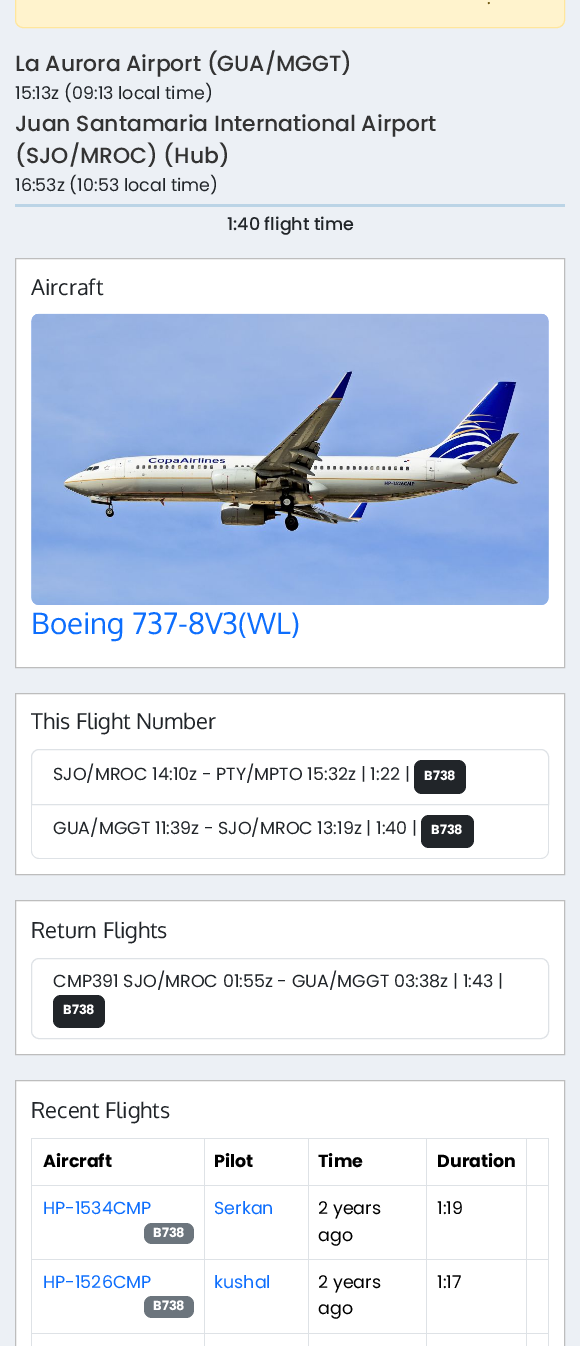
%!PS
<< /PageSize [580 1346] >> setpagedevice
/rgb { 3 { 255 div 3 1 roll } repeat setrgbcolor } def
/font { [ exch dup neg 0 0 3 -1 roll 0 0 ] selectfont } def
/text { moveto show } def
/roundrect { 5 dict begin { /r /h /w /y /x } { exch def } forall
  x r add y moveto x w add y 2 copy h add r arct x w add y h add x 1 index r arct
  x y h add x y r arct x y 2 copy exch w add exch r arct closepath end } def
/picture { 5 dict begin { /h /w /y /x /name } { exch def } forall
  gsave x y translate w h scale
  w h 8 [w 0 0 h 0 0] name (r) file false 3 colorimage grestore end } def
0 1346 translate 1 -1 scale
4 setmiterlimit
236 240 245 rgb
0 0 580 1346 rectfill
255 243 205 rgb
15.5 -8.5 549 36 7.5 roundrect gsave fill grestore
255 230 156 rgb
stroke
187 212 230 rgb
15 204 550 3 rectfill
255 255 255 rgb
15.5 258.5 moveto 549 0 rlineto 0 409 rlineto -549 0 rlineto closepath gsave fill grestore
189 189 189 rgb
stroke
(img_01.rgb) 31 313 518 292 picture
(img_02.rgb) 31 313 518 292 picture
255 255 255 rgb
15.5 693.5 moveto 549 0 rlineto 0 181 rlineto -549 0 rlineto closepath gsave fill grestore
189 189 189 rgb
stroke
222 226 230 rgb
39 749.5 moveto 502 0 rlineto 4 0 7.5 3.5 7.5 7.5 rcurveto 0 47.5 rlineto -517 0 rlineto 0 -47.5 rlineto 0 -4 3.5 -7.5 7.5 -7.5 rcurveto closepath stroke
33 37 41 rgb
414 760 52 34 8 roundrect fill
222 226 230 rgb
31 805 moveto 518 0 rlineto 0 46 rlineto 0 4 -4 8 -8 8 rcurveto -502 0 rlineto -4 0 -8 -4 -8 -8 rcurveto closepath 32 805 moveto 516 0 rlineto 0 46 rlineto 0 4 -3 7 -7 7 rcurveto -502 0 rlineto -4 0 -7 -3 -7 -7 rcurveto closepath eofill
33 37 41 rgb
421 815 53 33 8 roundrect fill
255 255 255 rgb
15.5 900.5 moveto 549 0 rlineto 0 154 rlineto -549 0 rlineto closepath gsave fill grestore
189 189 189 rgb
stroke
222 226 230 rgb
31.5 958.5 517 80 7.5 roundrect stroke
33 37 41 rgb
53 995 52 33 8 roundrect fill
255 255 255 rgb
15.5 1080.5 moveto 549 0 rlineto 0 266 rlineto -549 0 rlineto closepath gsave fill grestore
189 189 189 rgb
stroke
222 226 230 rgb
31 1138 518 1 rectfill
31 1333 518 1 rectfill
31 1185 518 1 rectfill
31 1259 518 1 rectfill
31 1138 1 208 rectfill
204 1138 1 208 rectfill
308 1138 1 208 rectfill
426 1138 1 208 rectfill
548 1138 1 208 rectfill
526 1138 1 208 rectfill
108 117 125 rgb
144 1223 50 21 8 roundrect fill
144 1296 50 22 8 roundrect fill
/Poppins-Regular 17.5 font
102 77 3 rgb
(.) 487 4 text
/Poppins-Medium 21.9 font
51 51 51 rgb
(La Aurora Airport \(GUA/MGGT\)) 15 71 text
/Poppins-Regular 17.5 font
33 37 41 rgb
(15:13z \(09:13 local time\)) 15 99 text
/Poppins-Medium 21.9 font
51 51 51 rgb
(Juan Santamaria International Airport) 15 131 text
(\(SJO/MROC\) \(Hub\)) 15 163 text
/Poppins-Regular 17.5 font
33 37 41 rgb
(16:53z \(10:53 local time\)) 15 191 text
/Poppins-Medium 17.5 font
(1:40 flight time) 227 230 text
/Oxygen-Regular 21.9 font
(Aircraft) 31 295 text
/Oxygen-Regular 29.5 font
13 110 253 rgb
(Boeing 737-8V3\(WL\)) 31 634 text
/Oxygen-Regular 21.9 font
33 37 41 rgb
(This Flight Number) 31 729 text
/Poppins-Regular 17.5 font
(SJO/MROC 14:10z - PTY/MPTO 15:32z | 1:22 |) 53 780 text
/Poppins-Bold 13 font
255 255 255 rgb
(B738) 424 780 text
/Poppins-Regular 17.5 font
33 37 41 rgb
(GUA/MGGT 11:39z - SJO/MROC 13:19z | 1:40 |) 53 834 text
/Poppins-Bold 13 font
255 255 255 rgb
(B738) 431 834 text
/Oxygen-Regular 21.9 font
33 37 41 rgb
(Return Flights) 31 938 text
/Poppins-Regular 17.5 font
(CMP391 SJO/MROC 01:55z - GUA/MGGT 03:38z | 1:43 |) 53 987 text
/Poppins-Bold 13 font
255 255 255 rgb
(B738) 63 1014 text
/Oxygen-Regular 21.9 font
33 37 41 rgb
(Recent Flights) 31 1118 text
/Poppins-Bold 17.5 font
0 0 0 rgb
(Aircraft) 43 1167 text
(Pilot) 214 1167 text
(Time) 318 1167 text
(Duration) 437 1167 text
/Poppins-Regular 17.5 font
13 110 253 rgb
(HP-1534CMP) 43 1214 text
/Poppins-Bold 13 font
255 255 255 rgb
(B738) 153 1237 text
/Poppins-Regular 17.5 font
13 110 253 rgb
(Serkan) 214 1214 text
0 0 0 rgb
(2 years) 318 1214 text
(ago) 318 1241 text
(1:19) 437 1214 text
13 110 253 rgb
(HP-1526CMP) 43 1288 text
/Poppins-Bold 13 font
255 255 255 rgb
(B738) 153 1310 text
/Poppins-Regular 17.5 font
13 110 253 rgb
(kushal) 214 1288 text
0 0 0 rgb
(2 years) 318 1288 text
(ago) 318 1314 text
(1:17) 437 1288 text
showpage
